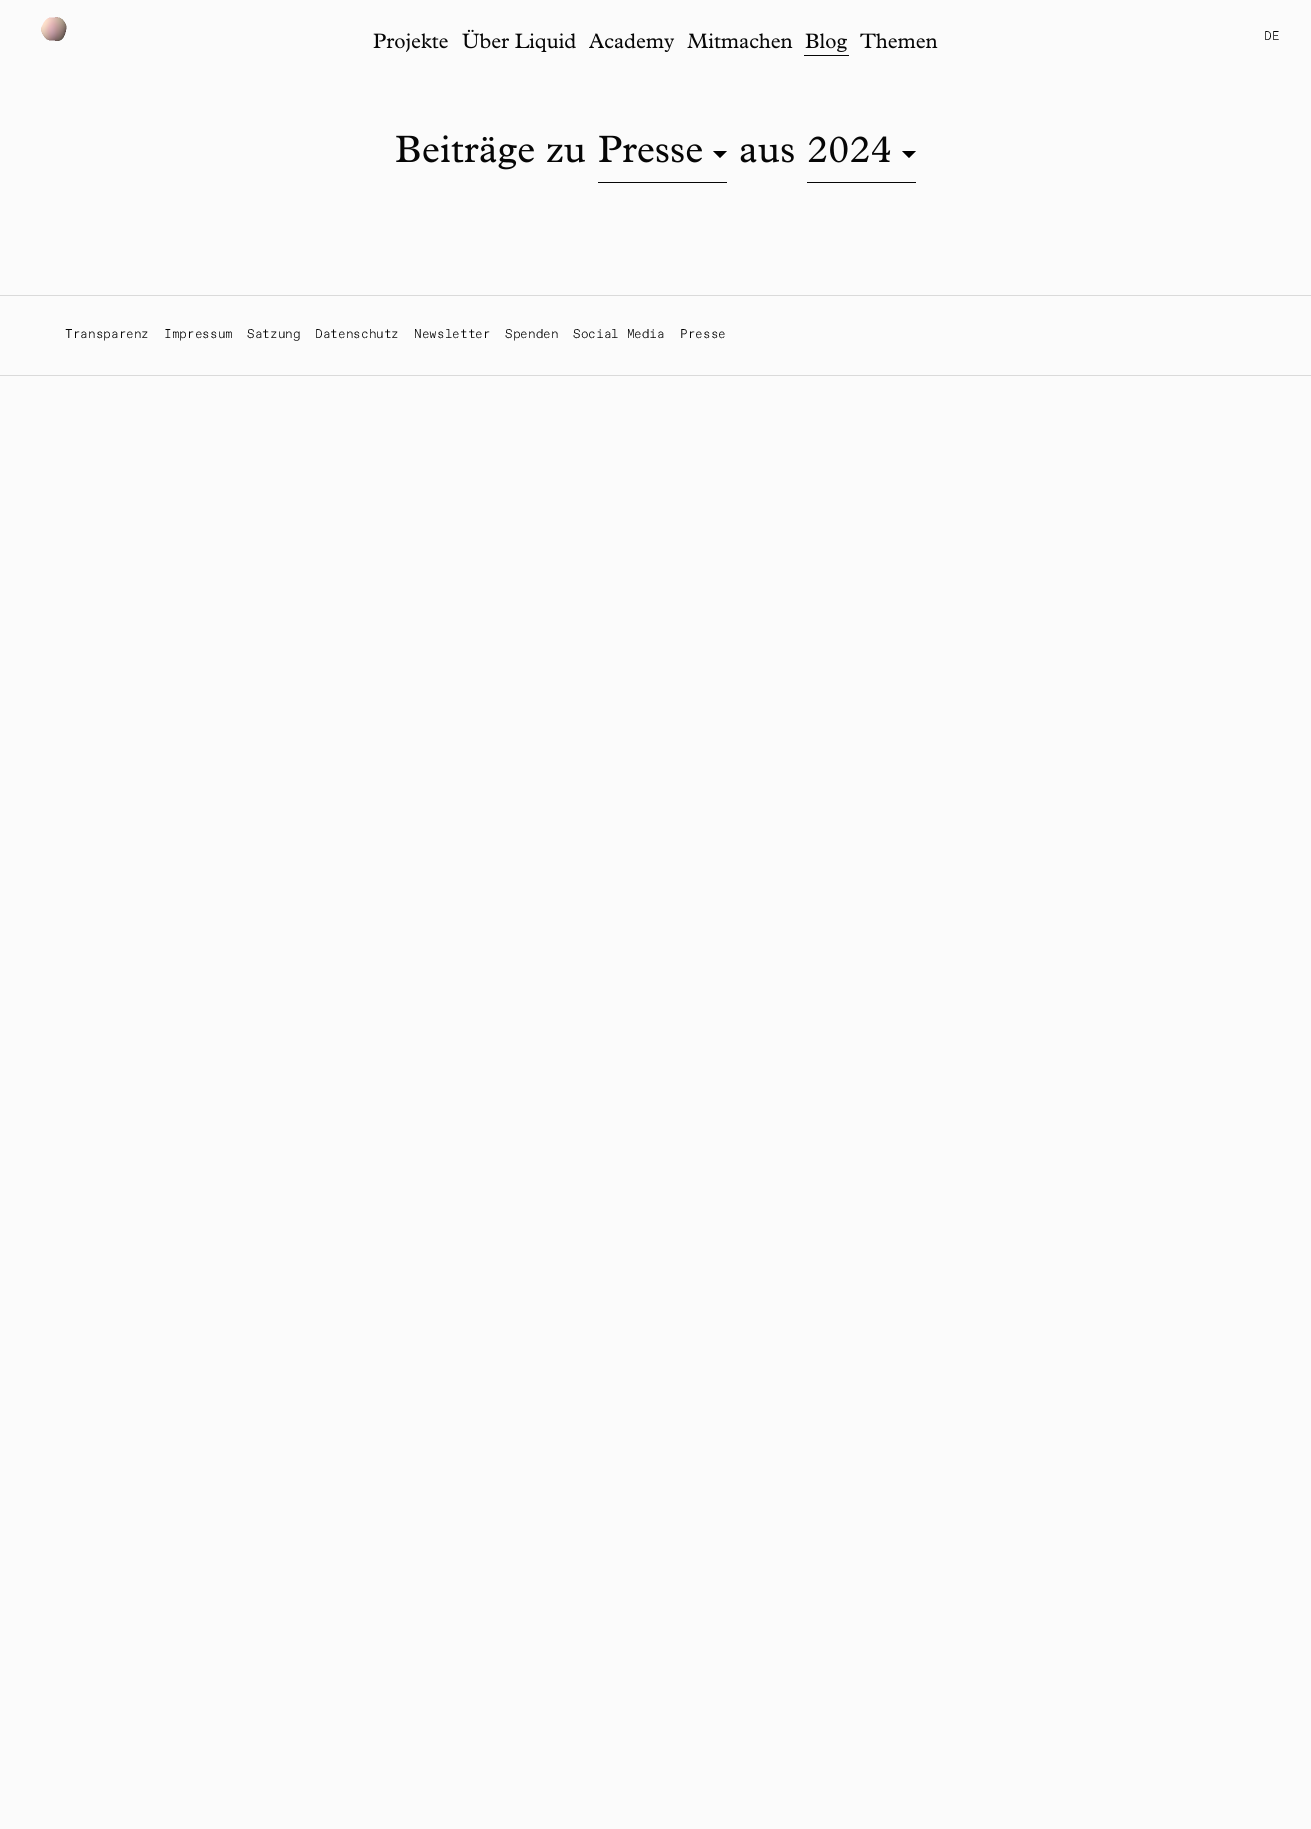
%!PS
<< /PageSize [1311 1829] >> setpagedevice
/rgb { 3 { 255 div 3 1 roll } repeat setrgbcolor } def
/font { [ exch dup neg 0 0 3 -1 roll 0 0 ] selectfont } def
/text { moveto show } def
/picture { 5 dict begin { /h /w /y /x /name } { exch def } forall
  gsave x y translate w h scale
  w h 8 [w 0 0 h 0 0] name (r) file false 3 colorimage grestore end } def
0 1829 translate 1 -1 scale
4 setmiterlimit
251 251 251 rgb
0 0 1311 1829 rectfill
(img_01.rgb) 41 17 26 24 picture
(img_02.rgb) 373 33 75 19 picture
(img_03.rgb) 462 29 114 23 picture
(img_04.rgb) 589 33 86 19 picture
(img_05.rgb) 687 33 106 16 picture
6 6 6 rgb
804 55 45 1 rectfill
(img_06.rgb) 805 33 42 19 picture
(img_07.rgb) 860 33 78 16 picture
(img_08.rgb) 396 135 189 35 picture
598 182 129 1 rectfill
(img_09.rgb) 599 135 103 28 picture
0 0 0 rgb
713 151 moveto 14 0 rlineto -7 7 rlineto closepath fill
(img_10.rgb) 740 144 54 19 picture
6 6 6 rgb
807 182 109 1 rectfill
(img_11.rgb) 808 136 83 27 picture
0 0 0 rgb
902 151 moveto 14 0 rlineto -7 7 rlineto closepath fill
218 218 218 rgb
0 295 1311 1 rectfill
0 375 1311 1 rectfill
/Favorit-Light 12.75 font
6 6 6 rgb
(DE) 1264 40 text
(Transparenz) 65 338 text
(Impressum) 164 338 text
(Satzung) 247 338 text
(Datenschutz) 315 338 text
(Newsletter) 414 338 text
(Spenden) 505 338 text
(Social Media) 573 338 text
(Presse) 680 338 text
showpage
